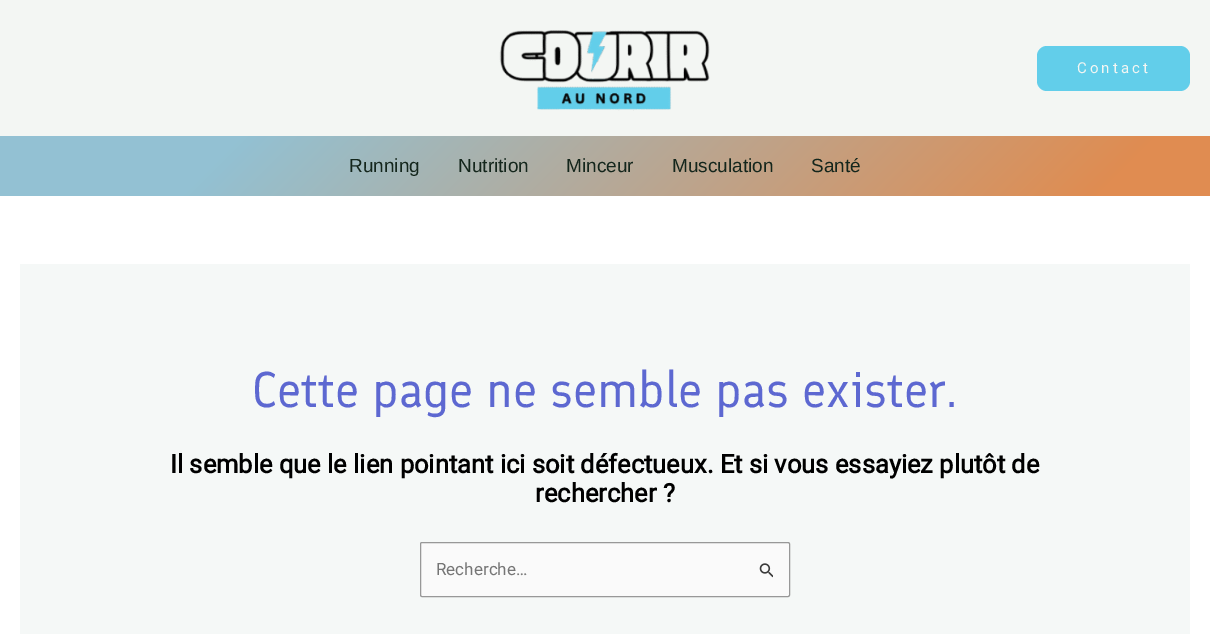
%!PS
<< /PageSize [1210 634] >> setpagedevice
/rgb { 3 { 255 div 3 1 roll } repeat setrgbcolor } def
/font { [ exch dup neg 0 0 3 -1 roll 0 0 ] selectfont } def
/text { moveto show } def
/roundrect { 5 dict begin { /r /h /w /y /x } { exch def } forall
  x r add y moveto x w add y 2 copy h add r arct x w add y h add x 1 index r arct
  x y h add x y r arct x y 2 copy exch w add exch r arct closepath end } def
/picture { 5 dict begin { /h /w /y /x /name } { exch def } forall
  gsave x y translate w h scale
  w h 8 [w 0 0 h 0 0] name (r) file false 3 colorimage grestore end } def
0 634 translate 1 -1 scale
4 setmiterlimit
255 255 255 rgb
0 0 1210 634 rectfill
243 246 243 rgb
0 0 1210 136 rectfill
(img_01.rgb) 499 30 211 81 picture
98 206 234 rgb
1037 46 153 45 10 roundrect fill
gsave 0 136 moveto 1210 0 rlineto 0 60 rlineto -1210 0 rlineto closepath clip newpath
<< /ShadingType 2 /ColorSpace /DeviceRGB /Coords [287 -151 923 484] /Extend [true true] /Function << /FunctionType 3 /Domain [0 1] /Functions [<< /FunctionType 2 /Domain [0 1] /C0 [0.576 0.757 0.827] /C1 [0.576 0.757 0.827] /N 1 >> << /FunctionType 2 /Domain [0 1] /C0 [0.576 0.757 0.827] /C1 [0.878 0.549 0.318] /N 1 >> << /FunctionType 2 /Domain [0 1] /C0 [0.878 0.549 0.318] /C1 [0.878 0.549 0.318] /N 1 >>] /Bounds [0.19 0.91] /Encode [0 1 0 1 0 1] >> >> shfill grestore
245 248 247 rgb
20 264 1170 370 rectfill
250 250 250 rgb
420.5 542.5 369 54 1.5 roundrect gsave fill grestore
152 152 152 rgb
stroke
(img_02.rgb) 759 563 14 15 picture
/Roboto-Regular 15 font
243 246 243 rgb
1077 73 moveto 3 0 (Contact) ashow
/LiberationSans-Regular 19 font
20 38 28 rgb
(Running) 349 172 text
(Nutrition) 458 172 text
(Minceur) 566 172 text
(Musculation) 672 172 text
(Santé) 811 172 text
/Finlandica-Regular 50 font
93 104 209 rgb
(Cette page ne semble pas exister.) 252 407 text
/Roboto-Bold 25.5 font
0 0 0 rgb
(Il semble que le lien pointant ici soit défectueux. Et si vous essayiez plutôt de) 170 473 text
(rechercher ?) 535 502 text
/Roboto-Regular 17 font
117 117 117 rgb
(Recherche…) 436 575 text
showpage
